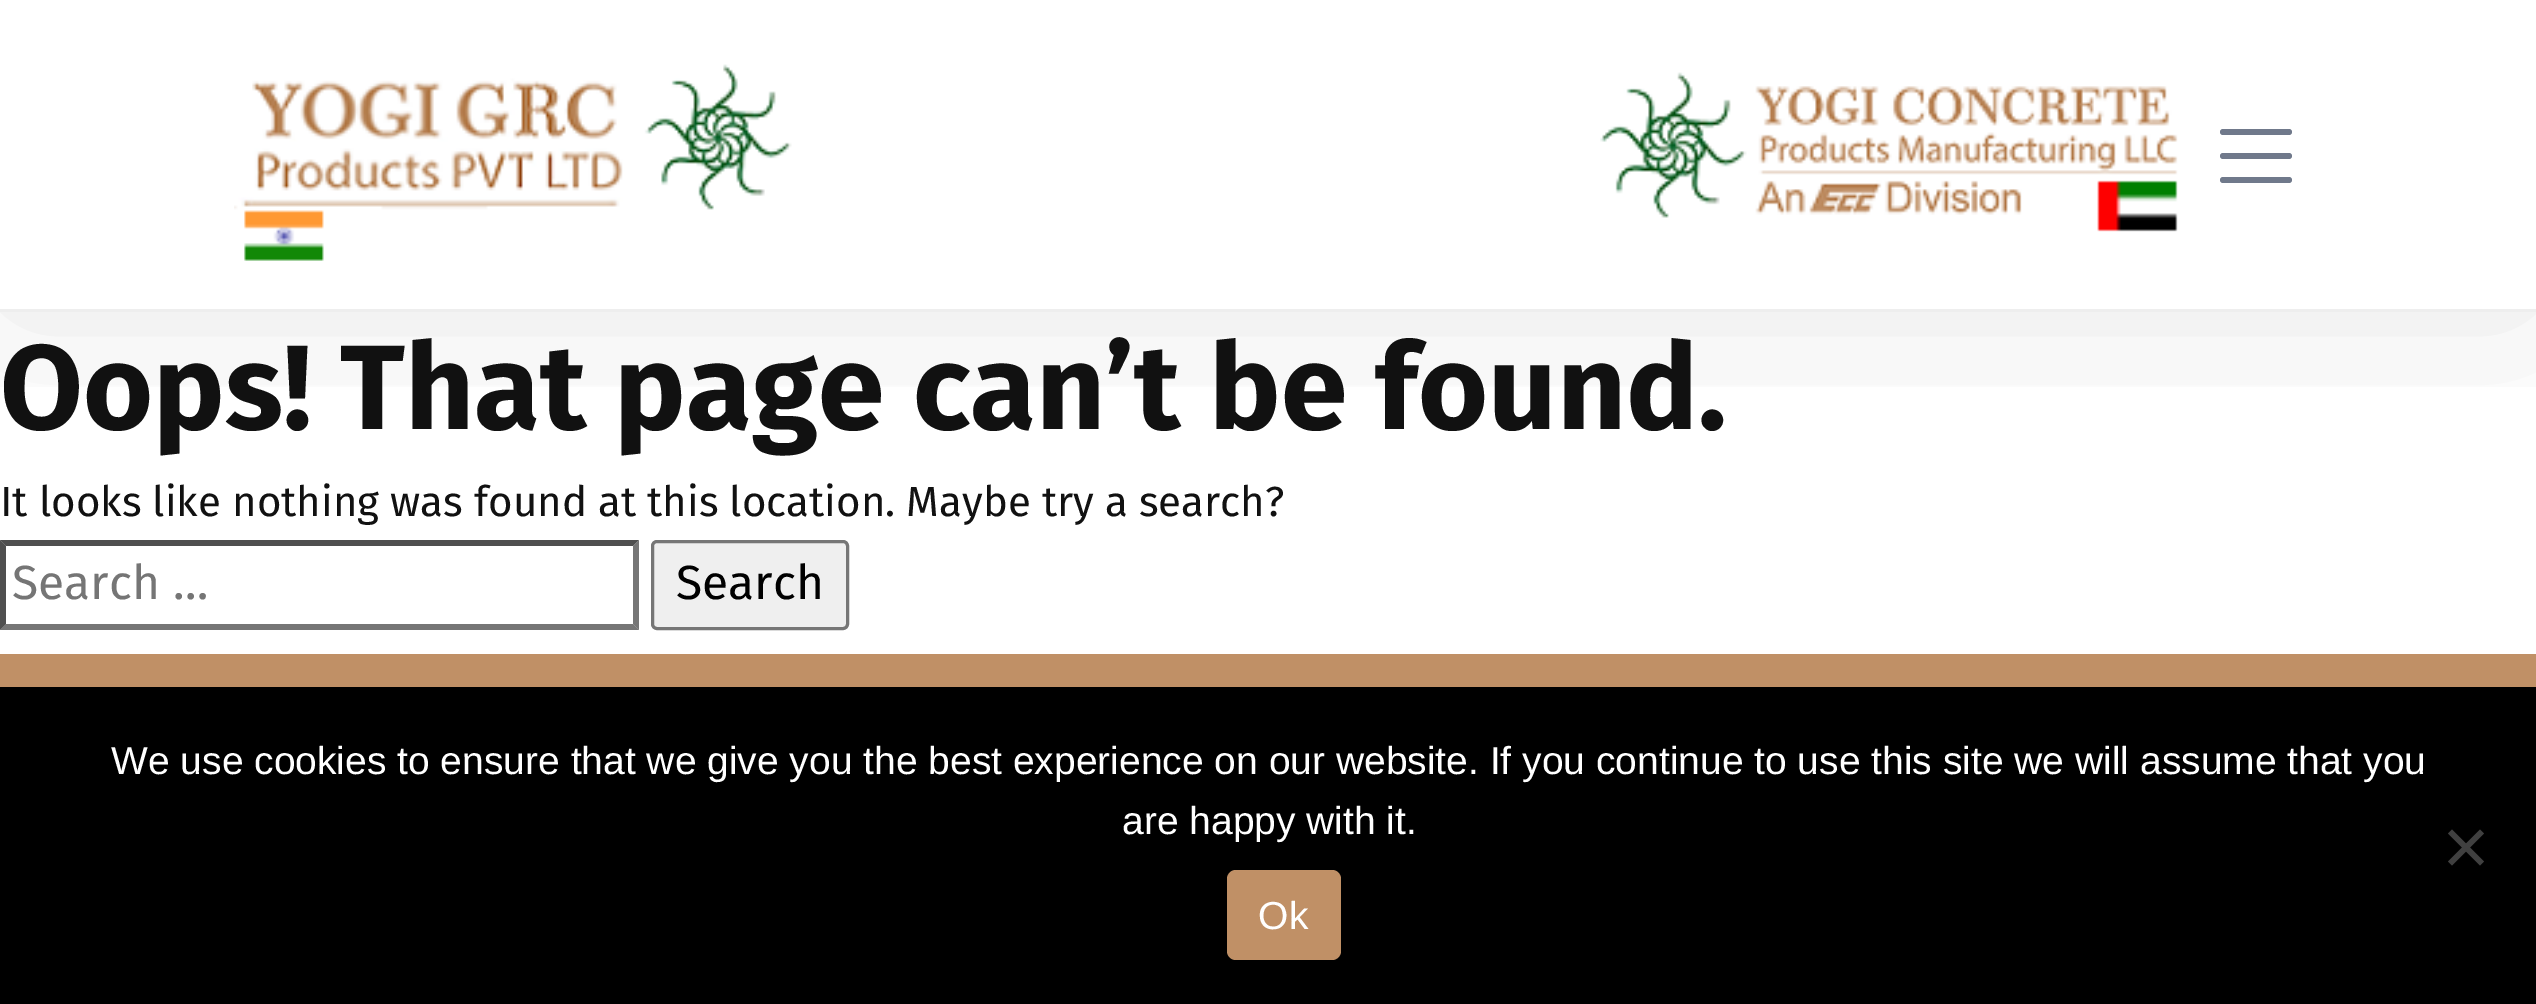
%!PS
<< /PageSize [2536 1004] /PageUsesTransparency true >> setpagedevice
/rgb { 3 { 255 div 3 1 roll } repeat setrgbcolor } def
/font { [ exch dup neg 0 0 3 -1 roll 0 0 ] selectfont } def
/text { moveto show } def
/alpha { dup .setfillconstantalpha .setstrokeconstantalpha } def
/roundrect { 5 dict begin { /r /h /w /y /x } { exch def } forall
  x r add y moveto x w add y 2 copy h add r arct x w add y h add x 1 index r arct
  x y h add x y r arct x y 2 copy exch w add exch r arct closepath end } def
/shadow { 12 dict begin { /a /b /q /h /w /y /x } { exch def } forall gsave /was 0 def
  9 -2 -9 { dup b mul 4 div /e exch def 1 sub .425 mul 2.718 exch exp 1 add a .99 .min exch div /now exch def
    1 1 now sub 1 was sub div sub alpha /was now def
    w h .min e 2 mul add 0 gt { x e sub y e sub w e 2 mul add h e 2 mul add
      q e add b .6 mul add w h .min 2 div e add .min 0 .max roundrect fill } if } for grestore end } def
/picture { 5 dict begin { /h /w /y /x /name } { exch def } forall
  gsave x y translate w h scale
  w h 8 [w 0 0 h 0 0] name (r) file false 3 colorimage grestore end } def
0 .pushpdf14devicefilter
0 1004 translate 1 -1 scale
4 setmiterlimit
255 255 255 rgb
0 0 2536 1004 rectfill
79 79 79 rgb
0 540 moveto 639 0 rlineto -6 6 rlineto -627 0 rlineto closepath fill
118 118 118 rgb
639 540 moveto 0 90 rlineto -6 -6 rlineto 0 -78 rlineto closepath fill
639 630 moveto -639 0 rlineto 6 -6 rlineto 627 0 rlineto closepath fill
79 79 79 rgb
0 630 moveto 0 -90 rlineto 6 6 rlineto 0 78 rlineto closepath fill
239 239 239 rgb
652.5 541.5 195 87 4.5 roundrect gsave fill grestore
118 118 118 rgb
3 setlinewidth
stroke
gsave
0 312 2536 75 rectclip
0 0 0 rgb
0 0 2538 312 0 97.5 0.09 shadow
grestore
238 238 238 rgb
0 309 2536 3 rectfill
(img_01.rgb) 234 64 558 197 picture
(img_02.rgb) 1600 72 578 160 picture
112 121 139 rgb
2220 177 72 6 3 roundrect fill
2220 153 72 6 3 roundrect fill
2220 129 72 6 3 roundrect fill
192 144 102 rgb
0 654 2536 33 rectfill
0 0 0 rgb
0 687 2536 317 rectfill
64 64 64 rgb
2480 829.5 moveto 4 4 rlineto -32 32 rlineto -4 -4 rlineto closepath fill
2448 833.5 moveto 4 -4 rlineto 32 32 rlineto -4 4 rlineto closepath fill
192 144 102 rgb
1227 870 114 90 9 roundrect fill
/FiraSans-Bold 120 font
17 17 17 rgb
(Oops! That page can’t be found.) 0 429 text
/FiraSans-Regular 42 font
(It looks like nothing was found at this location. Maybe try a search?) 0 516 text
/FiraSans-Regular 48 font
117 117 117 rgb
(Search …) 12 599 text
0 0 0 rgb
(Search) 676 599 text
/LiberationSans-Regular 39 font
255 255 255 rgb
(We use cookies to ensure that we give you the best experience on our website. If you continue to use this site we will assume that you) 111 774 text
(are happy with it.) 1122 834 text
1258 929 moveto 1 0 (Ok) ashow
.poppdf14devicefilter showpage
